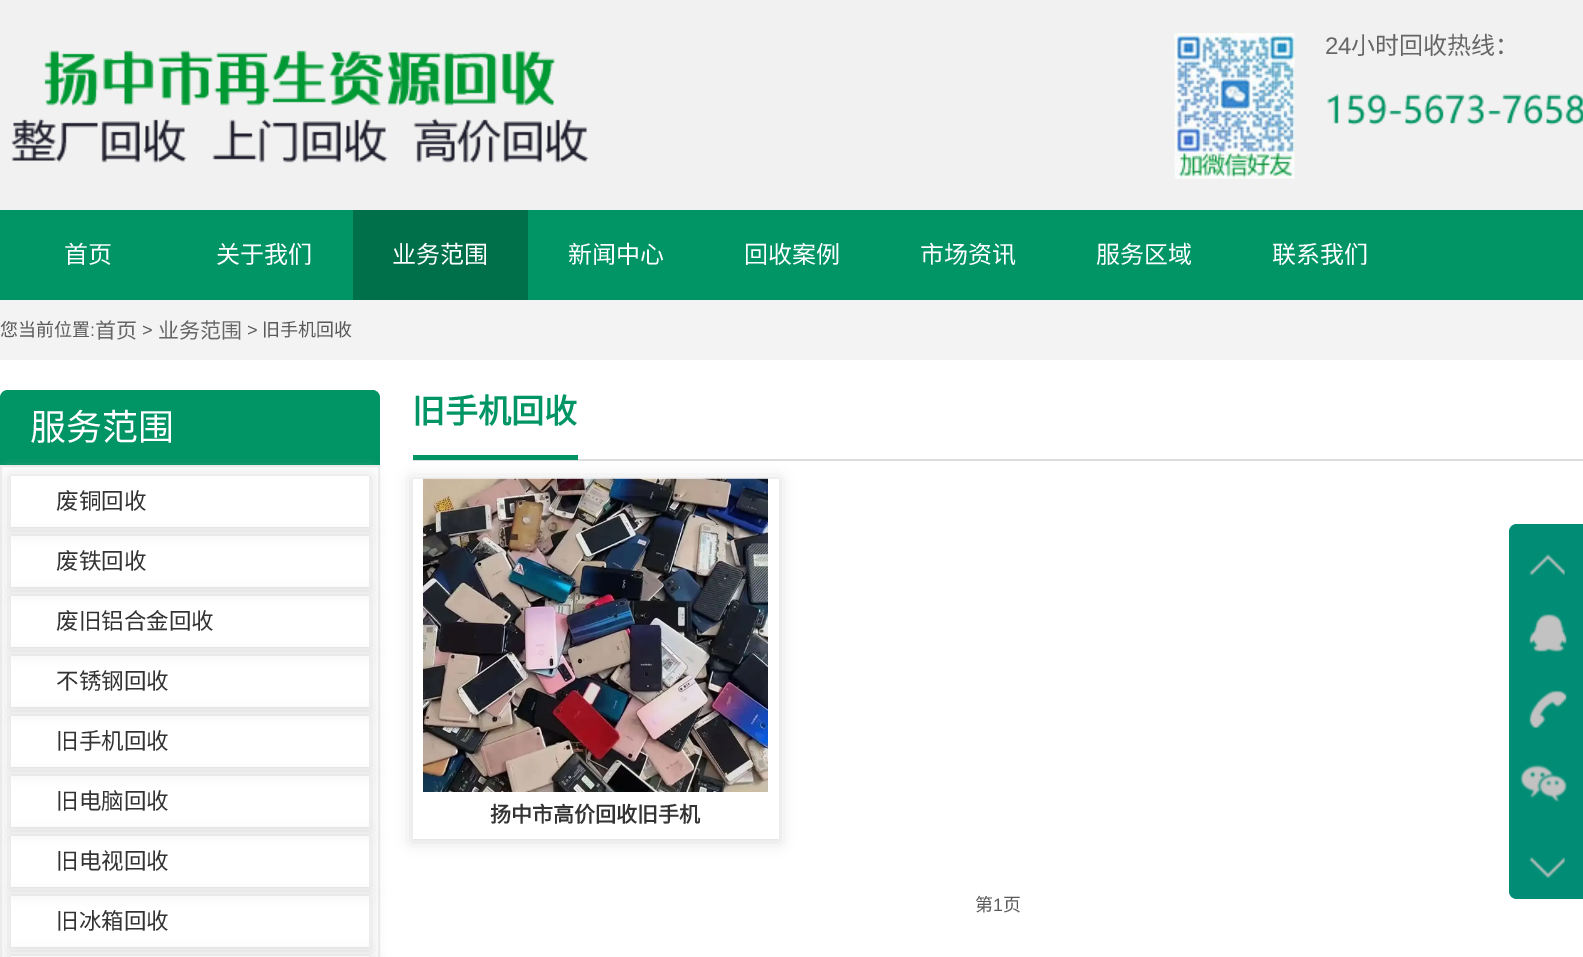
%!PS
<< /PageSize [1583 957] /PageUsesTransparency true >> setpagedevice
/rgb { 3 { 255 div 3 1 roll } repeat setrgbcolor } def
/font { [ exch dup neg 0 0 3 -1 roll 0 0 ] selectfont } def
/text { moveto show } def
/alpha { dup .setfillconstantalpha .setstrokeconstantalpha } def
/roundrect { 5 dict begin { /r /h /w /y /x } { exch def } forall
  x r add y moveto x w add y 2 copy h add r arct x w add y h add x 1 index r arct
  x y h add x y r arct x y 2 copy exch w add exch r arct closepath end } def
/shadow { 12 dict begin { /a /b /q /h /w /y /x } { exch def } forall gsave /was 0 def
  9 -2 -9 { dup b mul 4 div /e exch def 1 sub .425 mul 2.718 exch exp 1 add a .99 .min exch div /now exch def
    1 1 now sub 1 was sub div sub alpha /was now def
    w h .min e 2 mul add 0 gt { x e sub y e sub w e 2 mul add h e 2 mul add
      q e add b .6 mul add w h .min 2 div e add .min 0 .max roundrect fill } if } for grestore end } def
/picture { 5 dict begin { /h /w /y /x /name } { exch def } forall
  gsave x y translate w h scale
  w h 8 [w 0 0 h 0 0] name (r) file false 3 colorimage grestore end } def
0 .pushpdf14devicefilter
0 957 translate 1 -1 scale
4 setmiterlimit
255 255 255 rgb
0 0 1583 957 rectfill
241 241 241 rgb
0 0 1583 210 rectfill
(img_01.rgb) 1174 33 121 146 picture
(img_02.rgb) 1327 94 256 31 picture
(img_03.rgb) 11 50 578 113 picture
1 148 100 rgb
0 210 1583 90 rectfill
0 112 75 rgb
353 210 175 90 rectfill
243 243 243 rgb
0 300 1583 60 rectfill
1 148 100 rgb
8 390 moveto 364 0 rlineto 4.5 0 8 3.5 8 8 rcurveto 0 67 rlineto -380 0 rlineto 0 -67 rlineto 0 -4.5 3.5 -8 8 -8 rcurveto closepath fill
238 238 238 rgb
2 setlinewidth
1 466 378 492 rectstroke
gsave
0 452 moveto 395 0 rlineto 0 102 rlineto -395 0 rlineto closepath 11 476 moveto 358 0 rlineto 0 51 rlineto -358 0 rlineto closepath eoclip newpath
221 221 221 rgb
9 476 362 54 0 7.5 1 shadow
grestore
gsave
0 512 moveto 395 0 rlineto 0 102 rlineto -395 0 rlineto closepath 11 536 moveto 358 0 rlineto 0 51 rlineto -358 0 rlineto closepath eoclip newpath
221 221 221 rgb
9 536 362 54 0 7.5 1 shadow
grestore
gsave
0 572 moveto 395 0 rlineto 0 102 rlineto -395 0 rlineto closepath 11 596 moveto 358 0 rlineto 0 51 rlineto -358 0 rlineto closepath eoclip newpath
221 221 221 rgb
9 596 362 54 0 7.5 1 shadow
grestore
gsave
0 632 moveto 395 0 rlineto 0 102 rlineto -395 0 rlineto closepath 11 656 moveto 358 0 rlineto 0 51 rlineto -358 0 rlineto closepath eoclip newpath
221 221 221 rgb
9 656 362 54 0 7.5 1 shadow
grestore
gsave
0 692 moveto 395 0 rlineto 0 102 rlineto -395 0 rlineto closepath 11 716 moveto 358 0 rlineto 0 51 rlineto -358 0 rlineto closepath eoclip newpath
221 221 221 rgb
9 716 362 54 0 7.5 1 shadow
grestore
gsave
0 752 moveto 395 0 rlineto 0 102 rlineto -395 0 rlineto closepath 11 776 moveto 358 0 rlineto 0 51 rlineto -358 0 rlineto closepath eoclip newpath
221 221 221 rgb
9 776 362 54 0 7.5 1 shadow
grestore
gsave
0 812 moveto 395 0 rlineto 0 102 rlineto -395 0 rlineto closepath 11 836 moveto 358 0 rlineto 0 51 rlineto -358 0 rlineto closepath eoclip newpath
221 221 221 rgb
9 836 362 54 0 7.5 1 shadow
grestore
gsave
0 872 moveto 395 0 rlineto 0 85 rlineto -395 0 rlineto closepath 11 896 moveto 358 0 rlineto 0 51 rlineto -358 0 rlineto closepath eoclip newpath
221 221 221 rgb
9 896 362 54 0 7.5 1 shadow
grestore
gsave
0 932 moveto 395 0 rlineto 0 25 rlineto -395 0 rlineto closepath 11 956 moveto 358 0 rlineto 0 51 rlineto -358 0 rlineto closepath eoclip newpath
221 221 221 rgb
9 956 362 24 0 7.5 1 shadow
grestore
221 221 221 rgb
413 459 1170 2 rectfill
1 148 100 rgb
413 455 165 5 rectfill
gsave
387 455 moveto 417 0 rlineto 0 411 rlineto -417 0 rlineto closepath 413 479 moveto 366 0 rlineto 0 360 rlineto -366 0 rlineto closepath eoclip newpath
221 221 221 rgb
411 479 369 363 0 7.5 1 shadow
grestore
(img_04.rgb) 423 478 345 314 picture
1 141 117 rgb
1517 524 moveto 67 0 rlineto 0 375 rlineto -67 0 rlineto -4.5 0 -8 -3.5 -8 -8 rcurveto 0 -359 rlineto 0 -4.5 3.5 -8 8 -8 rcurveto closepath fill
(img_05.rgb) 1529 554 36 22 picture
(img_06.rgb) 1529 614 38 38 picture
(img_07.rgb) 1529 690 38 38 picture
(img_08.rgb) 1520 764 47 38 picture
(img_09.rgb) 1529 857 36 21 picture
/LiberationSans-Regular 24 font
102 102 102 rgb
(24) 1325 54 text
/NotoSansCJKSC-Regular 24 font
(小时回收热线：) 1351 54 text
255 255 255 rgb
(首页) 64 263 text
(关于我们) 216 263 text
(业务范围) 392 263 text
(新闻中心) 568 263 text
(回收案例) 744 263 text
(市场资讯) 920 263 text
(服务区域) 1096 263 text
(联系我们) 1272 263 text
/NotoSansCJKSC-Regular 18 font
90 90 90 rgb
(您当前位置) 0 336 text
/LiberationSans-Regular 18 font
(:) 90 336 text
/NotoSansCJKSC-Regular 21 font
102 102 102 rgb
(首页) 95 338 text
/LiberationSans-Regular 18 font
90 90 90 rgb
(>) 142 336 text
/NotoSansCJKSC-Regular 21 font
102 102 102 rgb
(业务范围) 158 338 text
/LiberationSans-Regular 18 font
90 90 90 rgb
(>) 247 336 text
/NotoSansCJKSC-Regular 18 font
(旧手机回收) 262 336 text
/NotoSansCJKSC-Regular 36 font
255 255 255 rgb
(服务范围) 30 440 text
/NotoSansCJKSC-Regular 22.5 font
51 51 51 rgb
(废铜回收) 56 509 text
(废铁回收) 56 569 text
(废旧铝合金回收) 56 629 text
(不锈钢回收) 56 689 text
(旧手机回收) 56 749 text
(旧电脑回收) 56 809 text
(旧电视回收) 56 869 text
(旧冰箱回收) 56 929 text
/NotoSansCJKSC-Bold 33 font
1 148 100 rgb
(旧手机回收) 412 423 text
/NotoSansCJKSC-Bold 21 font
51 51 51 rgb
(扬中市高价回收旧手机) 490 822 text
/NotoSansCJKSC-Regular 18 font
90 90 90 rgb
(第) 975 911 text
/LiberationSans-Regular 18 font
(1) 993 911 text
/NotoSansCJKSC-Regular 18 font
(页) 1003 911 text
.poppdf14devicefilter showpage
